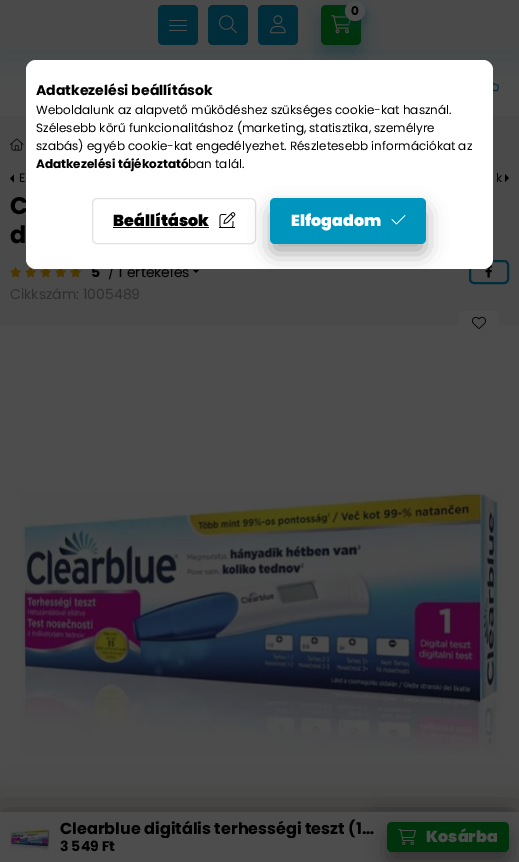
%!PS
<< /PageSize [519 862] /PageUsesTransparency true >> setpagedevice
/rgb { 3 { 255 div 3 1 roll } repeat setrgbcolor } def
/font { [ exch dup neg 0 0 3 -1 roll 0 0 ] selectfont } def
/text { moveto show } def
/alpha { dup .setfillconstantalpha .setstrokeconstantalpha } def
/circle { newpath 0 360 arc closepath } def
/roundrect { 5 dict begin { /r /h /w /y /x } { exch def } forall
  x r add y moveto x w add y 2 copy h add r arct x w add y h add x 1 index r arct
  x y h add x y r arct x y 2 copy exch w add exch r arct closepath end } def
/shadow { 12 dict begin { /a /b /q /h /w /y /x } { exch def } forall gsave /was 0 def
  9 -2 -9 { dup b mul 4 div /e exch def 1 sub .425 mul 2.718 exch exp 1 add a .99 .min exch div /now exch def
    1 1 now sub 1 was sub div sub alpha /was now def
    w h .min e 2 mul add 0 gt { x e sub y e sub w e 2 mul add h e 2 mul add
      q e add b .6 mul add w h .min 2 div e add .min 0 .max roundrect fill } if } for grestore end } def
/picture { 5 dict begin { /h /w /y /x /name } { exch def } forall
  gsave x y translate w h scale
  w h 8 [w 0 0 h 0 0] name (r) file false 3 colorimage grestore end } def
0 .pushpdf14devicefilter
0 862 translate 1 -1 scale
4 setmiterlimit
74 74 74 rgb
0 0 519 862 rectfill
77 77 77 rgb
0 50 519 66 rectfill
(img_04.rgb) 493 83 6 9 picture
0 45 57 rgb
0 0 519 50 0 15 0.2 shadow
74 74 74 rgb
0 0 519 50 rectfill
0 45 57 rgb
158 5 40 40 5 roundrect fill
77 77 77 rgb
169 20 18 1 rectfill
169 25 18 1 rectfill
169 30 18 1 rectfill
0 45 57 rgb
208 5 40 40 5 roundrect fill
(img_01.rgb) 219 15 18 19 picture
258 5 40 40 5 roundrect fill
(img_02.rgb) 270 15 16 19 picture
321 15 40 40 5 10 0.4 shadow
0 51 12 rgb
321 5 40 40 5 roundrect fill
(img_03.rgb) 331 15 20 19 picture
0 45 57 rgb
345 6 20 20 10 5 0.4 shadow
77 77 77 rgb
355 11 10 circle fill
(img_05.rgb) 10 138 14 13 picture
0 0 0 rgb
14 182.5 moveto 0 -8 rlineto -4 4 rlineto closepath fill
505 182 moveto 0 -8 rlineto 4 4 rlineto closepath fill
(img_06.rgb) 10 267 11 11 picture
(img_06.rgb) 25 267 11 11 picture
(img_07.rgb) 40 269 11 9 picture
(img_07.rgb) 55 269 11 9 picture
(img_07.rgb) 70 269 11 9 picture
193 270 moveto 6 0 rlineto -3 3 rlineto closepath fill
0 45 57 rgb
2 setlinewidth
470 261 38 22 4 roundrect stroke
(img_08.rgb) 485 265 7 13 picture
77 77 77 rgb
0 325 519 487 rectfill
459 311 40 24 5 roundrect fill
(img_09.rgb) 472 316 14 13 picture
(img_10.rgb) 22 492 480 263 picture
0 0 0 rgb
372 813 134 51 6 7.5 0.3 shadow
74 74 72 rgb
376 811 moveto 122 0 rlineto 3.5 0 6 2.5 6 6 rcurveto 0 22 rlineto -134 0 rlineto 0 -22 rlineto 0 -3.5 2.5 -6 6 -6 rcurveto closepath fill
34 23 14 rgb
0 812 519 50 0 20 0.5 shadow
77 77 77 rgb
0 812 519 50 rectfill
(img_11.rgb) 10 825 40 26 picture
17 16 16 rgb
387 832 122 30 5 10 0.4 shadow
0 51 12 rgb
387 822 122 30 5 roundrect fill
(img_12.rgb) 398 829 18 16 picture
/Poppins-Bold 12 font
0 0 0 rgb
(0) 351 15 text
/Poppins-Regular 12 font
(E) 19 182 text
(k) 496 182 text
/Poppins-Bold 24 font
(C) 10 214 text
(d) 10 243 text
/Poppins-Bold 14 font
(5) 91 277 text
/Poppins-Regular 14 font
(/ 1 értékelés) 108 277 text
46 46 46 rgb
(Cikkszám: 1005489) 10 299 text
gsave
60 819 317 19 rectclip
/Poppins-Bold 16 font
0 0 0 rgb
(Clearblue digitális terhességi teszt \(1…) 60 834 text
grestore
/Poppins-Bold 14 font
0 0 0 rgb
(3 549 Ft) 60 851 text
/Poppins-Black 16 font
77 77 77 rgb
(Kosárba) 426 842 text
255 255 255 rgb
26 60 467 209 10 roundrect fill
/Poppins-Bold 14 font
0 0 0 rgb
(Adatkezelési beállítások) 36 95 text
/Poppins-Regular 12 font
(Weboldalunk az alapvető működéshez szükséges cookie-kat használ.) 36 114 text
(Szélesebb körű funkcionalitáshoz \(marketing, statisztika, személyre) 36 132 text
(szabás\) egyéb cookie-kat engedélyezhet. Részletesebb információkat az) 36 150 text
/Poppins-Bold 12 font
(Adatkezelési tájékoztató) 36 168 text
/Poppins-Regular 12 font
(ban talál.) 188 168 text
225 225 225 rgb
1 setlinewidth
92.5 198.5 163 45 4.5 roundrect stroke
/Poppins-Black 16 font
0 0 0 rgb
(Beállítások) 113 226 text
113 227 96 1 rectfill
(img_13.rgb) 219 212 17 15 picture
219 227 16 1 rectfill
gsave
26 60 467 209 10 roundrect clip newpath
57 52 52 rgb
270 208 156 46 5 10 0.4 shadow
grestore
0 149 189 rgb
270 198 156 46 5 roundrect fill
255 255 255 rgb
(Elfogadom) 291 226 text
(img_14.rgb) 391 215 15 10 picture
.poppdf14devicefilter showpage
